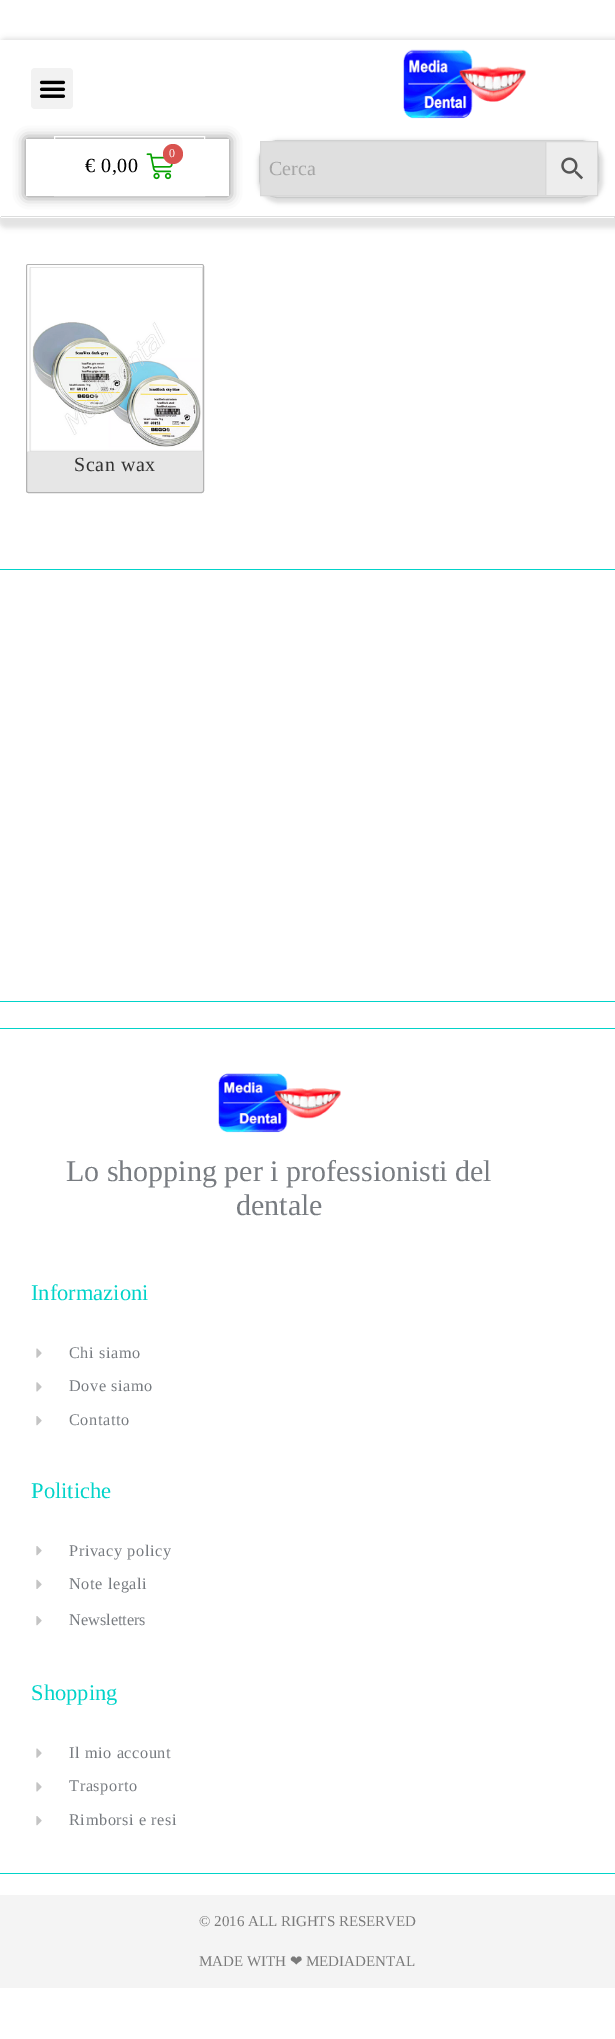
%!PS
<< /PageSize [615 2039] /PageUsesTransparency true >> setpagedevice
/rgb { 3 { 255 div 3 1 roll } repeat setrgbcolor } def
/font { [ exch dup neg 0 0 3 -1 roll 0 0 ] selectfont } def
/text { moveto show } def
/alpha { dup .setfillconstantalpha .setstrokeconstantalpha } def
/circle { newpath 0 360 arc closepath } def
/roundrect { 5 dict begin { /r /h /w /y /x } { exch def } forall
  x r add y moveto x w add y 2 copy h add r arct x w add y h add x 1 index r arct
  x y h add x y r arct x y 2 copy exch w add exch r arct closepath end } def
/shadow { 12 dict begin { /a /b /q /h /w /y /x } { exch def } forall gsave /was 0 def
  9 -2 -9 { dup b mul 4 div /e exch def 1 sub .425 mul 2.718 exch exp 1 add a .99 .min exch div /now exch def
    1 1 now sub 1 was sub div sub alpha /was now def
    w h .min e 2 mul add 0 gt { x e sub y e sub w e 2 mul add h e 2 mul add
      q e add b .6 mul add w h .min 2 div e add .min 0 .max roundrect fill } if } for grestore end } def
/picture { 5 dict begin { /h /w /y /x /name } { exch def } forall
  gsave x y translate w h scale
  w h 8 [w 0 0 h 0 0] name (r) file false 3 colorimage grestore end } def
0 .pushpdf14devicefilter
0 2039 translate 1 -1 scale
4 setmiterlimit
255 255 255 rgb
0 0 615 2039 rectfill
gsave
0 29 moveto 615 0 rlineto 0 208 rlineto -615 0 rlineto closepath 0 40 moveto 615 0 rlineto 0 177 rlineto 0 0.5 -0.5 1 -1 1 rcurveto -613 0 rlineto -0.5 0 -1 -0.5 -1 -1 rcurveto closepath eoclip newpath
163 163 163 rgb
-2 38 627 190 8 2.5 0.31 shadow
grestore
220 221 221 rgb
1 216 614 1 rectfill
242 242 242 rgb
31 68 42 41 4 roundrect fill
(img_01.rgb) 39 80 27 18 picture
(img_02.rgb) 403 49 123 70 picture
gsave
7 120 moveto 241 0 rlineto 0 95 rlineto -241 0 rlineto closepath 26 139 moveto 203 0 rlineto 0 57 rlineto -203 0 rlineto closepath eoclip newpath
0 0 0 rgb
26 139 203 57 0 6 0.5 shadow
grestore
255 255 255 rgb
54.5 136.5 150 59 rectstroke
(img_03.rgb) 146 153 27 27 picture
217 83 79 rgb
173 154 10 circle fill
173 175 175 rgb
258 140 345 63 21 2 0.43 shadow
0.43 alpha
259.5 140.5 339 57 18.5 roundrect stroke
1 alpha
237 237 237 rgb
545.5 141.5 moveto 52 0 rlineto 0 54 rlineto -52 0 rlineto closepath gsave fill grestore
216 216 216 rgb
stroke
223 223 223 rgb
260.5 141.5 moveto 285 0 rlineto 0 54 rlineto -285 0 rlineto closepath gsave fill grestore
216 216 216 rgb
stroke
(img_04.rgb) 561 157 22 23 picture
230 230 230 rgb
26 264 178 229 2.5 roundrect fill
0.89 alpha
172 172 172 rgb
26.5 264.5 177 228 2 roundrect stroke
1 alpha
(img_05.rgb) 27 265 176 187 picture
2 211 201 rgb
0 569 615 1 rectfill
0 1001 615 1 rectfill
0 1028 615 1 rectfill
0 1873 615 1 rectfill
(img_06.rgb) 218 1073 123 60 picture
(img_07.rgb) 36 1348 6 10 picture
(img_08.rgb) 36 1382 6 10 picture
(img_09.rgb) 36 1416 6 10 picture
(img_09.rgb) 36 1546 6 10 picture
(img_10.rgb) 36 1579 6 10 picture
(img_09.rgb) 36 1616 6 10 picture
(img_07.rgb) 36 1748 6 10 picture
(img_08.rgb) 36 1782 6 10 picture
(img_09.rgb) 36 1816 6 10 picture
244 244 244 rgb
0 1895 615 93 rectfill
/LiberationSerif-Regular 12 font
255 255 255 rgb
169 157 moveto 0.6 0 (0) ashow
/LiberationSerif-Regular 20 font
0 0 0 rgb
85 172 moveto 0.6 0 (€ 0,00) ashow
166 166 166 rgb
(Cerca) 269 175 text
51 51 51 rgb
74 471 moveto 0.6 0 (Scan wax) ashow
/LiberationSerif-Regular 30 font
120 124 129 rgb
(Lo shopping per i professionisti del) 66 1181 text
(dentale) 236 1215 text
/LiberationSerif-Regular 22.5 font
2 211 201 rgb
(Informazioni) 31 1300 text
/LiberationSerif-Regular 16.25 font
120 124 129 rgb
69 1358 moveto 0.6 0 (Chi siamo) ashow
69 1391 moveto 0.6 0 (Dove siamo) ashow
69 1425 moveto 0.6 0 (Contatto) ashow
/LiberationSerif-Regular 22.5 font
2 211 201 rgb
(Politiche) 31 1498 text
/LiberationSerif-Regular 16.25 font
120 124 129 rgb
69 1556 moveto 0.6 0 (Privacy policy) ashow
69 1589 moveto 0.6 0 (Note legali) ashow
(Newsletters) 69 1625 text
/LiberationSerif-Regular 22.5 font
2 211 201 rgb
(Shopping) 31 1700 text
/LiberationSerif-Regular 16.25 font
120 124 129 rgb
69 1758 moveto 0.6 0 (Il mio account) ashow
69 1791 moveto 0.6 0 (Trasporto) ashow
69 1825 moveto 0.6 0 (Rimborsi e resi) ashow
/LiberationSerif-Regular 15 font
122 122 122 rgb
(© 2016 ALL RIGHTS RESERVED) 199 1926 text
(MADE WITH) 199 1966 text
/DejaVuSans-Regular 15 font
(❤) 290 1966 text
/LiberationSerif-Regular 15 font
(MEDIADENTAL) 306 1966 text
.poppdf14devicefilter showpage
